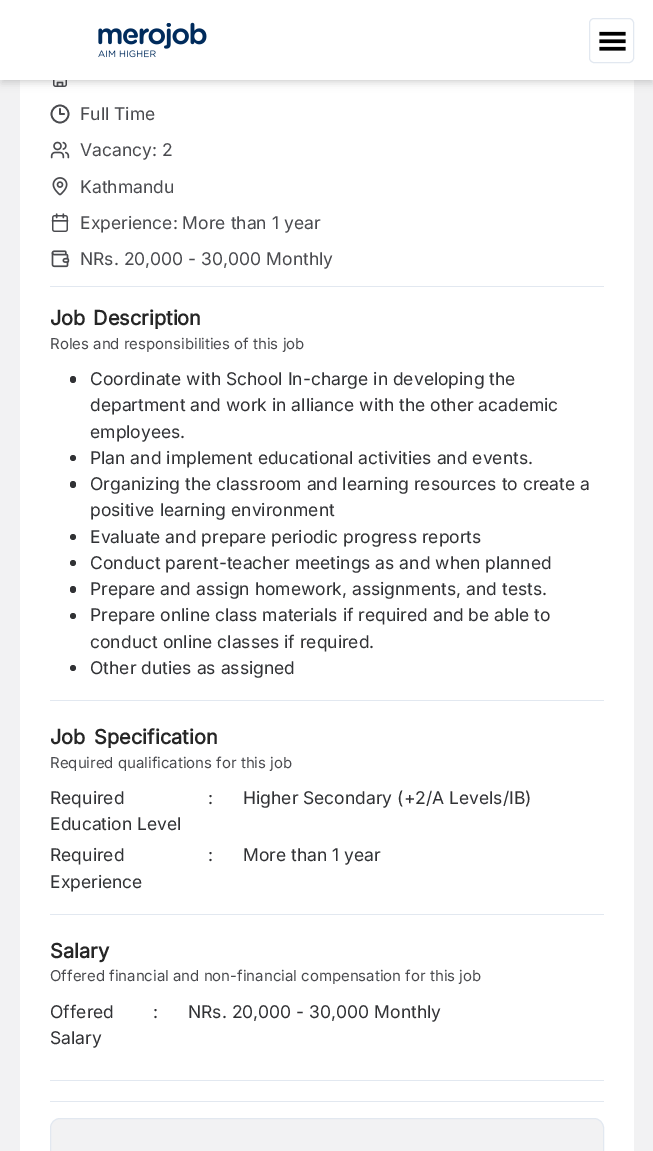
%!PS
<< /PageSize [653 1151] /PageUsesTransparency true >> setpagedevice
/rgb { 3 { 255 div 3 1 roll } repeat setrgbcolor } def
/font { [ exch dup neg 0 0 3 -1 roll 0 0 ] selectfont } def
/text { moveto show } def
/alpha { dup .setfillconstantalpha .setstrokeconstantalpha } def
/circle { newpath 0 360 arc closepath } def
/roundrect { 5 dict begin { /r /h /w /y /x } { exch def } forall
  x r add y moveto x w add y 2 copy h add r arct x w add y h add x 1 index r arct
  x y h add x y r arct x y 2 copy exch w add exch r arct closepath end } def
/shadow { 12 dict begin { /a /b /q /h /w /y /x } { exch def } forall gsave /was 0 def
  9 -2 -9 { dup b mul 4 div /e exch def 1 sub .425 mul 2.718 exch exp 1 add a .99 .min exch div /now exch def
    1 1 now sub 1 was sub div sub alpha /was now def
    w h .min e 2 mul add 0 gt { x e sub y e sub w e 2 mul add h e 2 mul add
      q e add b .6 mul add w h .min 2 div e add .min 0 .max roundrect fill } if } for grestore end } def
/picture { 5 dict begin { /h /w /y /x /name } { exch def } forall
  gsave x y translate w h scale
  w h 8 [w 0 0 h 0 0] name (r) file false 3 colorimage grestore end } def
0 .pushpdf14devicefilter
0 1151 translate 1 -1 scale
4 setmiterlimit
242 242 243 rgb
0 0 653 1151 rectfill
255 255 255 rgb
20 80 614 1071 rectfill
(img_03.rgb) 53 80 14 7 picture
0 0 0 rgb
3 5 648 75 0 2.5 0.1 shadow
1 6 652 78 0 4 0.1 shadow
255 255 255 rgb
0 0 653 80 rectfill
(img_01.rgb) 98 22 109 36 picture
226 232 240 rgb
589.5 18.5 44 44 4.5 roundrect stroke
(img_02.rgb) 599 31 27 20 picture
74 75 79 rgb
1.7 setlinewidth
60 114 8.5 circle stroke
1 setlinecap
1 setlinejoin
60 109 moveto 0 5 rlineto 4 0 rlineto stroke
(img_04.rgb) 50 141 20 18 picture
(img_05.rgb) 52 177 16 19 picture
(img_06.rgb) 51 213 18 19 picture
(img_07.rgb) 51 250 19 18 picture
226 232 240 rgb
50 286 554 1 rectfill
49 50 53 rgb
70 376 6 7 3 roundrect fill
73 458 3 circle fill
70 481 6 7 3 roundrect fill
73 537 3 circle fill
73 563 3 circle fill
70 586 6 7 3 roundrect fill
73 616 3 circle fill
73 668 3 circle fill
226 232 240 rgb
50 700 554 1 rectfill
50 914 554 1 rectfill
50 1080 554 1 rectfill
50 1101 554 1 rectfill
242 242 243 rgb
50.5 1118.5 553 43 9.5 roundrect gsave fill grestore
226 232 240 rgb
1 setlinewidth
0 setlinecap
0 setlinejoin
stroke
/Inter-Regular 17.5 font
74 75 79 rgb
(Full Time) 80 120 text
(Vacancy: 2) 80 156 text
(Kathmandu) 80 193 text
(Experience: More than 1 year) 80 229 text
(NRs. 20,000 - 30,000 Monthly) 80 265 text
/Inter-Bold 20 font
38 38 38 rgb
50 325 moveto 2 0 32 (Job Description) widthshow
/Inter-Regular 15 font
74 75 79 rgb
(Roles and responsibilities of this job) 50 349 text
/Inter-Regular 17.5 font
49 50 53 rgb
(Coordinate with School In-charge in developing the) 90 385 text
(department and work in alliance with the other academic) 90 411 text
(employees.) 90 438 text
(Plan and implement educational activities and events.) 90 464 text
(Organizing the classroom and learning resources to create a) 90 490 text
(positive learning environment) 90 516 text
(Evaluate and prepare periodic progress reports) 90 543 text
(Conduct parent-teacher meetings as and when planned) 90 569 text
(Prepare and assign homework, assignments, and tests.) 90 595 text
(Prepare online class materials if required and be able to) 90 621 text
(conduct online classes if required.) 90 648 text
(Other duties as assigned) 90 674 text
/Inter-Bold 20 font
38 38 38 rgb
50 744 moveto 3 0 32 (Job Specification) widthshow
/Inter-Regular 15 font
74 75 79 rgb
(Required qualifications for this job) 50 768 text
/Inter-Regular 17.5 font
49 50 53 rgb
(Required) 50 804 text
(Education Level) 50 830 text
(:) 208 804 text
(Higher Secondary \(+2/A Levels/IB\)) 243 804 text
(Required) 50 861 text
(Experience) 50 888 text
(:) 208 861 text
(More than 1 year) 243 861 text
/Inter-Bold 20 font
38 38 38 rgb
(Salary) 50 958 text
/Inter-Regular 15 font
74 75 79 rgb
(Offered financial and non-financial compensation for this job) 50 981 text
/Inter-Regular 17.5 font
49 50 53 rgb
(Offered) 50 1018 text
(Salary) 50 1044 text
(:) 153 1018 text
(NRs. 20,000 - 30,000 Monthly) 188 1018 text
.poppdf14devicefilter showpage
